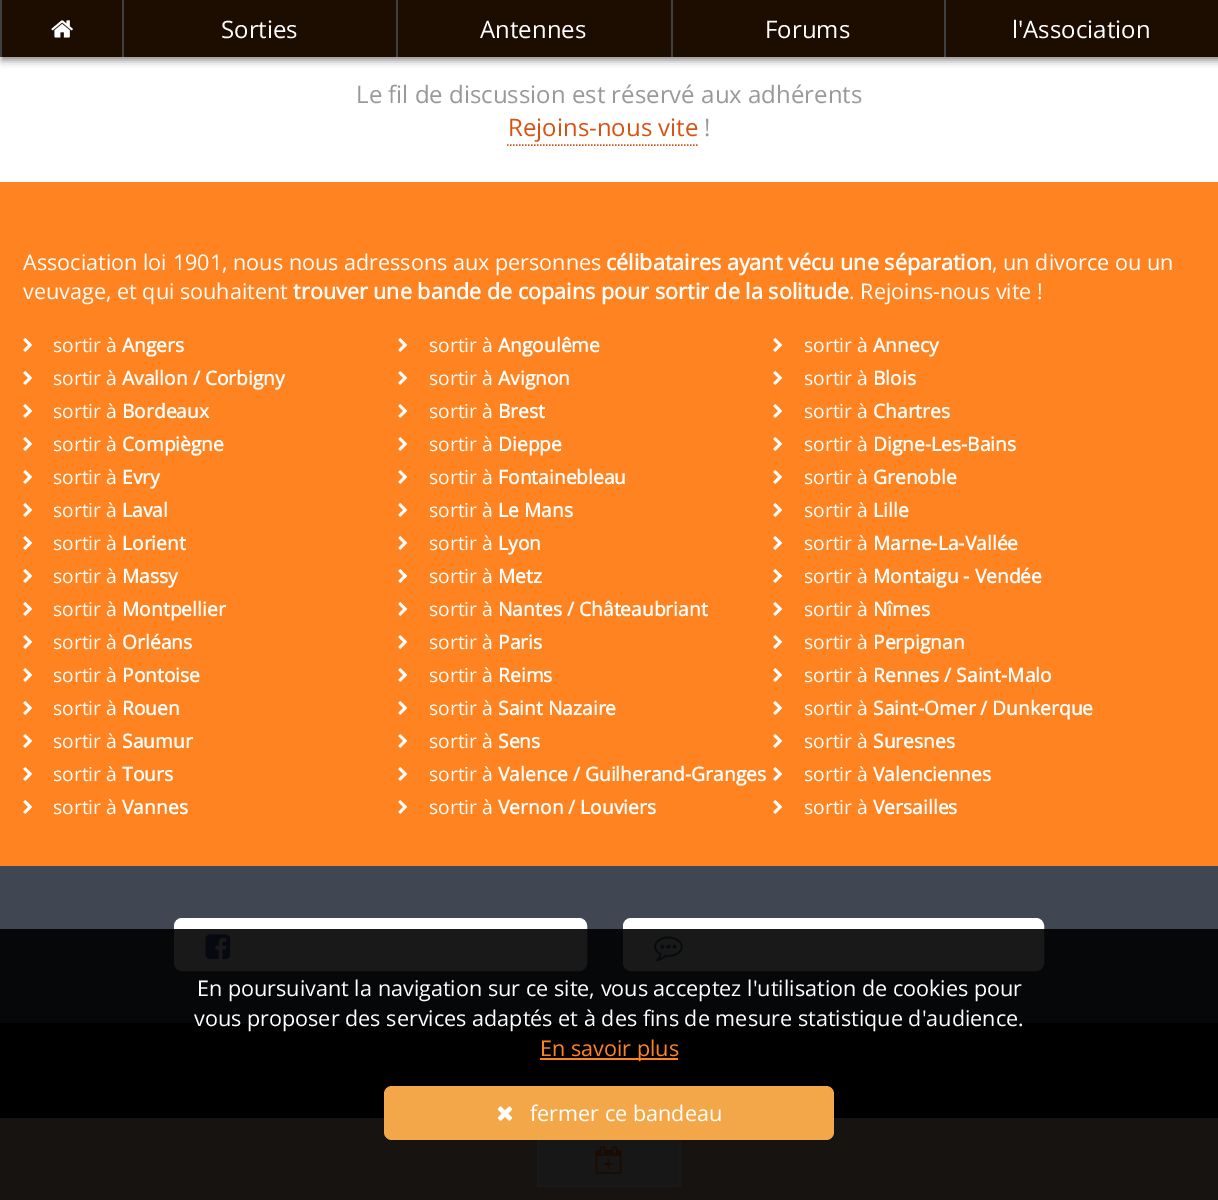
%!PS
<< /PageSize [1218 1200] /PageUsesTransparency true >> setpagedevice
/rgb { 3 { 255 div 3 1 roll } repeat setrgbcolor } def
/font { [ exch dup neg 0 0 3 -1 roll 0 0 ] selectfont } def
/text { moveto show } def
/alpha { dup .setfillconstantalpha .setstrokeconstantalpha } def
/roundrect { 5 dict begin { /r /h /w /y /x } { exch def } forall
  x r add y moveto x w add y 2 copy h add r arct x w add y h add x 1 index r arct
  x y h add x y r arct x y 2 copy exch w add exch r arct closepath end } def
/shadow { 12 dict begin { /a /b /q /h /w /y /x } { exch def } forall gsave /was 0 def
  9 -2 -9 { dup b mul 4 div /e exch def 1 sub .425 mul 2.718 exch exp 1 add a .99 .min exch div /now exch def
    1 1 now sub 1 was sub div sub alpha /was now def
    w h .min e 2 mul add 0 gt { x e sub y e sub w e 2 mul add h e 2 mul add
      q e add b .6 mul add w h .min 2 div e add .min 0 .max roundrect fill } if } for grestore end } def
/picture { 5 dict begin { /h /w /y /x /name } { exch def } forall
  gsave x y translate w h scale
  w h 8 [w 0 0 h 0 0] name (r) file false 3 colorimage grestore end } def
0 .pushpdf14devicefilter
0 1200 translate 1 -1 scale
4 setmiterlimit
255 255 255 rgb
0 0 1218 1200 rectfill
0 0 0 rgb
2 3 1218 57 0 4 0.5 shadow
28 13 0 rgb
2 0 1216 57 rectfill
64 64 64 rgb
0 0 2 57 rectfill
(img_01.rgb) 51 20 22 18 picture
122 0 2 57 rectfill
396 0 2 57 rectfill
671 0 2 57 rectfill
944 0 2 57 rectfill
215 83 18 rgb
1.5 setlinewidth
[1.5 1.5] 0 setdash
507 145 moveto 190.5 0 rlineto stroke
0 0 0 rgb
0 1023 1218 95 rectfill
255 132 33 rgb
0 182 1218 684 rectfill
(img_02.rgb) 23 338 10 14 picture
(img_02.rgb) 398 338 10 14 picture
(img_02.rgb) 773 338 10 14 picture
(img_02.rgb) 23 371 10 14 picture
(img_02.rgb) 398 371 10 14 picture
(img_02.rgb) 773 371 10 14 picture
(img_02.rgb) 23 404 10 14 picture
(img_02.rgb) 398 404 10 14 picture
(img_02.rgb) 773 404 10 14 picture
(img_02.rgb) 23 437 10 14 picture
(img_02.rgb) 398 437 10 14 picture
(img_02.rgb) 773 437 10 14 picture
(img_02.rgb) 23 470 10 14 picture
(img_02.rgb) 398 470 10 14 picture
(img_02.rgb) 773 470 10 14 picture
(img_02.rgb) 23 503 10 14 picture
(img_02.rgb) 398 503 10 14 picture
(img_02.rgb) 773 503 10 14 picture
(img_02.rgb) 23 536 10 14 picture
(img_02.rgb) 398 536 10 14 picture
(img_02.rgb) 773 536 10 14 picture
(img_02.rgb) 23 569 10 14 picture
(img_02.rgb) 398 569 10 14 picture
(img_02.rgb) 773 569 10 14 picture
(img_02.rgb) 23 602 10 14 picture
(img_02.rgb) 398 602 10 14 picture
(img_02.rgb) 773 602 10 14 picture
(img_02.rgb) 23 635 10 14 picture
(img_02.rgb) 398 635 10 14 picture
(img_02.rgb) 773 635 10 14 picture
(img_02.rgb) 23 668 10 14 picture
(img_02.rgb) 398 668 10 14 picture
(img_02.rgb) 773 668 10 14 picture
(img_02.rgb) 23 701 10 14 picture
(img_02.rgb) 398 701 10 14 picture
(img_02.rgb) 773 701 10 14 picture
(img_02.rgb) 23 734 10 14 picture
(img_02.rgb) 398 734 10 14 picture
(img_02.rgb) 773 734 10 14 picture
(img_02.rgb) 23 767 10 14 picture
(img_02.rgb) 398 767 10 14 picture
(img_02.rgb) 773 767 10 14 picture
(img_02.rgb) 23 800 10 14 picture
(img_02.rgb) 398 800 10 14 picture
(img_02.rgb) 773 800 10 14 picture
65 71 82 rgb
0 866 1218 157 rectfill
255 255 255 rgb
175 919 411 51 7 roundrect gsave fill grestore
2 setlinewidth
[] 0 setdash
stroke
(img_03.rgb) 205 934 26 26 picture
624 919 419 51 7 roundrect gsave fill grestore
stroke
(img_04.rgb) 654 936 29 26 picture
223 196 177 rgb
0 1118 1218 82 rectfill
245 237 231 rgb
539 1140 140 45 rectfill
255 255 255 rgb
538 1132 142 54 rectstroke
(img_06.rgb) 595 1145 27 29 picture
0.9 alpha
0 0 0 rgb
0 929 1218 271 rectfill
1 alpha
255 132 33 rgb
540 1058 138 2 rectfill
244 167 72 rgb
384 1086 450 54 8 roundrect fill
(img_05.rgb) 497 1106 16 15 picture
/OpenSans-Regular 24 font
255 255 255 rgb
(Sorties) 221 38 text
(Antennes) 480 38 text
(Forums) 765 38 text
(l'Association) 1012 38 text
153 153 153 rgb
(Le fil de discussion est réservé aux adhérents) 356 103 text
215 83 18 rgb
(Rejoins-nous vite) 508 136 text
153 153 153 rgb
(!) 704 136 text
/OpenSans-Regular 21.6 font
255 255 255 rgb
(Association loi 1901, nous nous adressons aux personnes) 23 270 text
/OpenSans-Bold 21.6 font
(célibataires ayant vécu une séparation) 606 270 text
/OpenSans-Regular 21.6 font
(, un divorce ou un) 992 270 text
(veuvage, et qui souhaitent) 23 299 text
/OpenSans-Bold 21.6 font
(trouver une bande de copains pour sortir de la solitude) 293 299 text
/OpenSans-Regular 21.6 font
(. Rejoins-nous vite !) 849 299 text
/OpenSans-Regular 19.25 font
(sortir à) 53 352 text
/OpenSans-Bold 19.25 font
(Angers) 122 352 text
/OpenSans-Regular 19.25 font
(sortir à) 429 352 text
/OpenSans-Bold 19.25 font
(Angoulême) 498 352 text
/OpenSans-Regular 19.25 font
(sortir à) 804 352 text
/OpenSans-Bold 19.25 font
(Annecy) 873 352 text
/OpenSans-Regular 19.25 font
(sortir à) 53 385 text
/OpenSans-Bold 19.25 font
(Avallon / Corbigny) 122 385 text
/OpenSans-Regular 19.25 font
(sortir à) 429 385 text
/OpenSans-Bold 19.25 font
(Avignon) 498 385 text
/OpenSans-Regular 19.25 font
(sortir à) 804 385 text
/OpenSans-Bold 19.25 font
(Blois) 873 385 text
/OpenSans-Regular 19.25 font
(sortir à) 53 418 text
/OpenSans-Bold 19.25 font
(Bordeaux) 122 418 text
/OpenSans-Regular 19.25 font
(sortir à) 429 418 text
/OpenSans-Bold 19.25 font
(Brest) 498 418 text
/OpenSans-Regular 19.25 font
(sortir à) 804 418 text
/OpenSans-Bold 19.25 font
(Chartres) 873 418 text
/OpenSans-Regular 19.25 font
(sortir à) 53 451 text
/OpenSans-Bold 19.25 font
(Compiègne) 122 451 text
/OpenSans-Regular 19.25 font
(sortir à) 429 451 text
/OpenSans-Bold 19.25 font
(Dieppe) 498 451 text
/OpenSans-Regular 19.25 font
(sortir à) 804 451 text
/OpenSans-Bold 19.25 font
(Digne-Les-Bains) 873 451 text
/OpenSans-Regular 19.25 font
(sortir à) 53 484 text
/OpenSans-Bold 19.25 font
(Evry) 122 484 text
/OpenSans-Regular 19.25 font
(sortir à) 429 484 text
/OpenSans-Bold 19.25 font
(Fontainebleau) 498 484 text
/OpenSans-Regular 19.25 font
(sortir à) 804 484 text
/OpenSans-Bold 19.25 font
(Grenoble) 873 484 text
/OpenSans-Regular 19.25 font
(sortir à) 53 517 text
/OpenSans-Bold 19.25 font
(Laval) 122 517 text
/OpenSans-Regular 19.25 font
(sortir à) 429 517 text
/OpenSans-Bold 19.25 font
(Le Mans) 498 517 text
/OpenSans-Regular 19.25 font
(sortir à) 804 517 text
/OpenSans-Bold 19.25 font
(Lille) 873 517 text
/OpenSans-Regular 19.25 font
(sortir à) 53 550 text
/OpenSans-Bold 19.25 font
(Lorient) 122 550 text
/OpenSans-Regular 19.25 font
(sortir à) 429 550 text
/OpenSans-Bold 19.25 font
(Lyon) 498 550 text
/OpenSans-Regular 19.25 font
(sortir à) 804 550 text
/OpenSans-Bold 19.25 font
(Marne-La-Vallée) 873 550 text
/OpenSans-Regular 19.25 font
(sortir à) 53 583 text
/OpenSans-Bold 19.25 font
(Massy) 122 583 text
/OpenSans-Regular 19.25 font
(sortir à) 429 583 text
/OpenSans-Bold 19.25 font
(Metz) 498 583 text
/OpenSans-Regular 19.25 font
(sortir à) 804 583 text
/OpenSans-Bold 19.25 font
(Montaigu - Vendée) 873 583 text
/OpenSans-Regular 19.25 font
(sortir à) 53 616 text
/OpenSans-Bold 19.25 font
(Montpellier) 122 616 text
/OpenSans-Regular 19.25 font
(sortir à) 429 616 text
/OpenSans-Bold 19.25 font
(Nantes / Châteaubriant) 498 616 text
/OpenSans-Regular 19.25 font
(sortir à) 804 616 text
/OpenSans-Bold 19.25 font
(Nîmes) 873 616 text
/OpenSans-Regular 19.25 font
(sortir à) 53 649 text
/OpenSans-Bold 19.25 font
(Orléans) 122 649 text
/OpenSans-Regular 19.25 font
(sortir à) 429 649 text
/OpenSans-Bold 19.25 font
(Paris) 498 649 text
/OpenSans-Regular 19.25 font
(sortir à) 804 649 text
/OpenSans-Bold 19.25 font
(Perpignan) 873 649 text
/OpenSans-Regular 19.25 font
(sortir à) 53 682 text
/OpenSans-Bold 19.25 font
(Pontoise) 122 682 text
/OpenSans-Regular 19.25 font
(sortir à) 429 682 text
/OpenSans-Bold 19.25 font
(Reims) 498 682 text
/OpenSans-Regular 19.25 font
(sortir à) 804 682 text
/OpenSans-Bold 19.25 font
(Rennes / Saint-Malo) 873 682 text
/OpenSans-Regular 19.25 font
(sortir à) 53 715 text
/OpenSans-Bold 19.25 font
(Rouen) 122 715 text
/OpenSans-Regular 19.25 font
(sortir à) 429 715 text
/OpenSans-Bold 19.25 font
(Saint Nazaire) 498 715 text
/OpenSans-Regular 19.25 font
(sortir à) 804 715 text
/OpenSans-Bold 19.25 font
(Saint-Omer / Dunkerque) 873 715 text
/OpenSans-Regular 19.25 font
(sortir à) 53 748 text
/OpenSans-Bold 19.25 font
(Saumur) 122 748 text
/OpenSans-Regular 19.25 font
(sortir à) 429 748 text
/OpenSans-Bold 19.25 font
(Sens) 498 748 text
/OpenSans-Regular 19.25 font
(sortir à) 804 748 text
/OpenSans-Bold 19.25 font
(Suresnes) 873 748 text
/OpenSans-Regular 19.25 font
(sortir à) 53 781 text
/OpenSans-Bold 19.25 font
(Tours) 122 781 text
/OpenSans-Regular 19.25 font
(sortir à) 429 781 text
/OpenSans-Bold 19.25 font
(Valence / Guilherand-Granges) 498 781 text
/OpenSans-Regular 19.25 font
(sortir à) 804 781 text
/OpenSans-Bold 19.25 font
(Valenciennes) 873 781 text
/OpenSans-Regular 19.25 font
(sortir à) 53 814 text
/OpenSans-Bold 19.25 font
(Vannes) 122 814 text
/OpenSans-Regular 19.25 font
(sortir à) 429 814 text
/OpenSans-Bold 19.25 font
(Vernon / Louviers) 498 814 text
/OpenSans-Regular 19.25 font
(sortir à) 804 814 text
/OpenSans-Bold 19.25 font
(Versailles) 873 814 text
/OpenSans-Regular 21.6 font
(En poursuivant la navigation sur ce site, vous acceptez l'utilisation de cookies pour) 197 996 text
(vous proposer des services adaptés et à des fins de mesure statistique d'audience.) 194 1026 text
255 132 33 rgb
(En savoir plus) 540 1056 text
255 255 255 rgb
(fermer ce bandeau) 530 1121 text
.poppdf14devicefilter showpage
